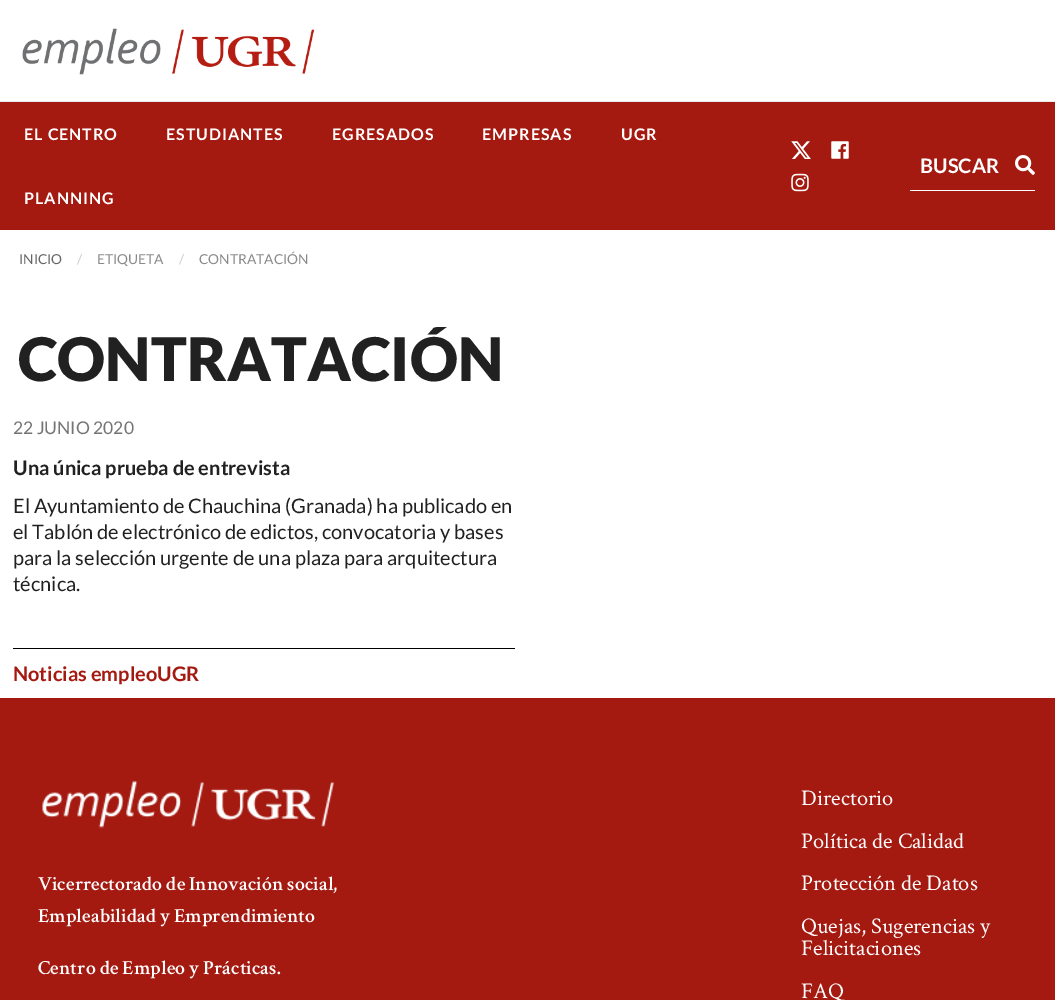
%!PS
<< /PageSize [1055 1000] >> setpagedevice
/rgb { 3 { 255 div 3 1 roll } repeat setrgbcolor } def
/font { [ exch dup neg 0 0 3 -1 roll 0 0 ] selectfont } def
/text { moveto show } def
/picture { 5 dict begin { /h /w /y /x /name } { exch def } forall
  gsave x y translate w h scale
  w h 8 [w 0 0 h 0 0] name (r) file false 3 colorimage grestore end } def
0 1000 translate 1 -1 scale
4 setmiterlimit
255 255 255 rgb
0 0 1055 1000 rectfill
(img_01.rgb) 22 28 293 47 picture
164 25 16 rgb
0 102 1055 128 rectfill
234 234 234 rgb
0 101 1055 1 rectfill
(img_02.rgb) 791 141 20 18 picture
(img_03.rgb) 831 141 18 18 picture
(img_04.rgb) 791 173 18 19 picture
255 255 255 rgb
910 190 125 1 rectfill
(img_05.rgb) 1015 155 20 20 picture
0 0 0 rgb
13 648 502 1 rectfill
164 25 16 rgb
0 698 1055 302 rectfill
(img_06.rgb) 42 781 292 47 picture
/Lato-Bold 16 font
254 254 254 rgb
24 140 moveto 1 0 (EL CENTRO) ashow
166 140 moveto 1 0 (ESTUDIANTES) ashow
332 140 moveto 1 0 (EGRESADOS) ashow
482 140 moveto 1 0 (EMPRESAS) ashow
621 140 moveto 1 0 (UGR) ashow
24 204 moveto 1 0 (PLANNING) ashow
/Lato-Bold 20 font
(BUSCAR) 920 173 text
/Lato-Regular 13.75 font
102 102 102 rgb
(INICIO) 19 264 text
202 202 202 rgb
(/) 77 264 text
138 138 138 rgb
(ETIQUETA) 97 264 text
202 202 202 rgb
(/) 179 264 text
138 138 138 rgb
(CONTRATACIÓN) 199 264 text
/Lato-Black 60 font
33 33 33 rgb
(CONTRATACIÓN) 18 381 text
/Lato-Regular 17.5 font
117 117 117 rgb
(22 JUNIO 2020) 13 434 text
/Lato-Bold 20 font
33 33 33 rgb
(Una única prueba de entrevista) 13 475 text
/Lato-Regular 20 font
(El Ayuntamiento de Chauchina \(Granada\) ha publicado en) 13 513 text
(el Tablón de electrónico de edictos, convocatoria y bases) 13 539 text
(para la selección urgente de una plaza para arquitectura) 13 565 text
(técnica.) 13 591 text
/Lato-Bold 20 font
164 25 16 rgb
(Noticias empleoUGR) 13 681 text
/CrimsonText-SemiBold 20 font
254 254 254 rgb
(Vicerrectorado de Innovación social,) 38 890 text
(Empleabilidad y Emprendimiento) 38 922 text
(Centro de Empleo y Prácticas.) 38 974 text
/CrimsonText-Regular 22.5 font
(Directorio) 801 805 text
(Política de Calidad) 801 848 text
(Protección de Datos) 801 890 text
(Quejas, Sugerencias y) 801 933 text
(Felicitaciones) 801 955 text
(FAQ) 801 998 text
showpage
